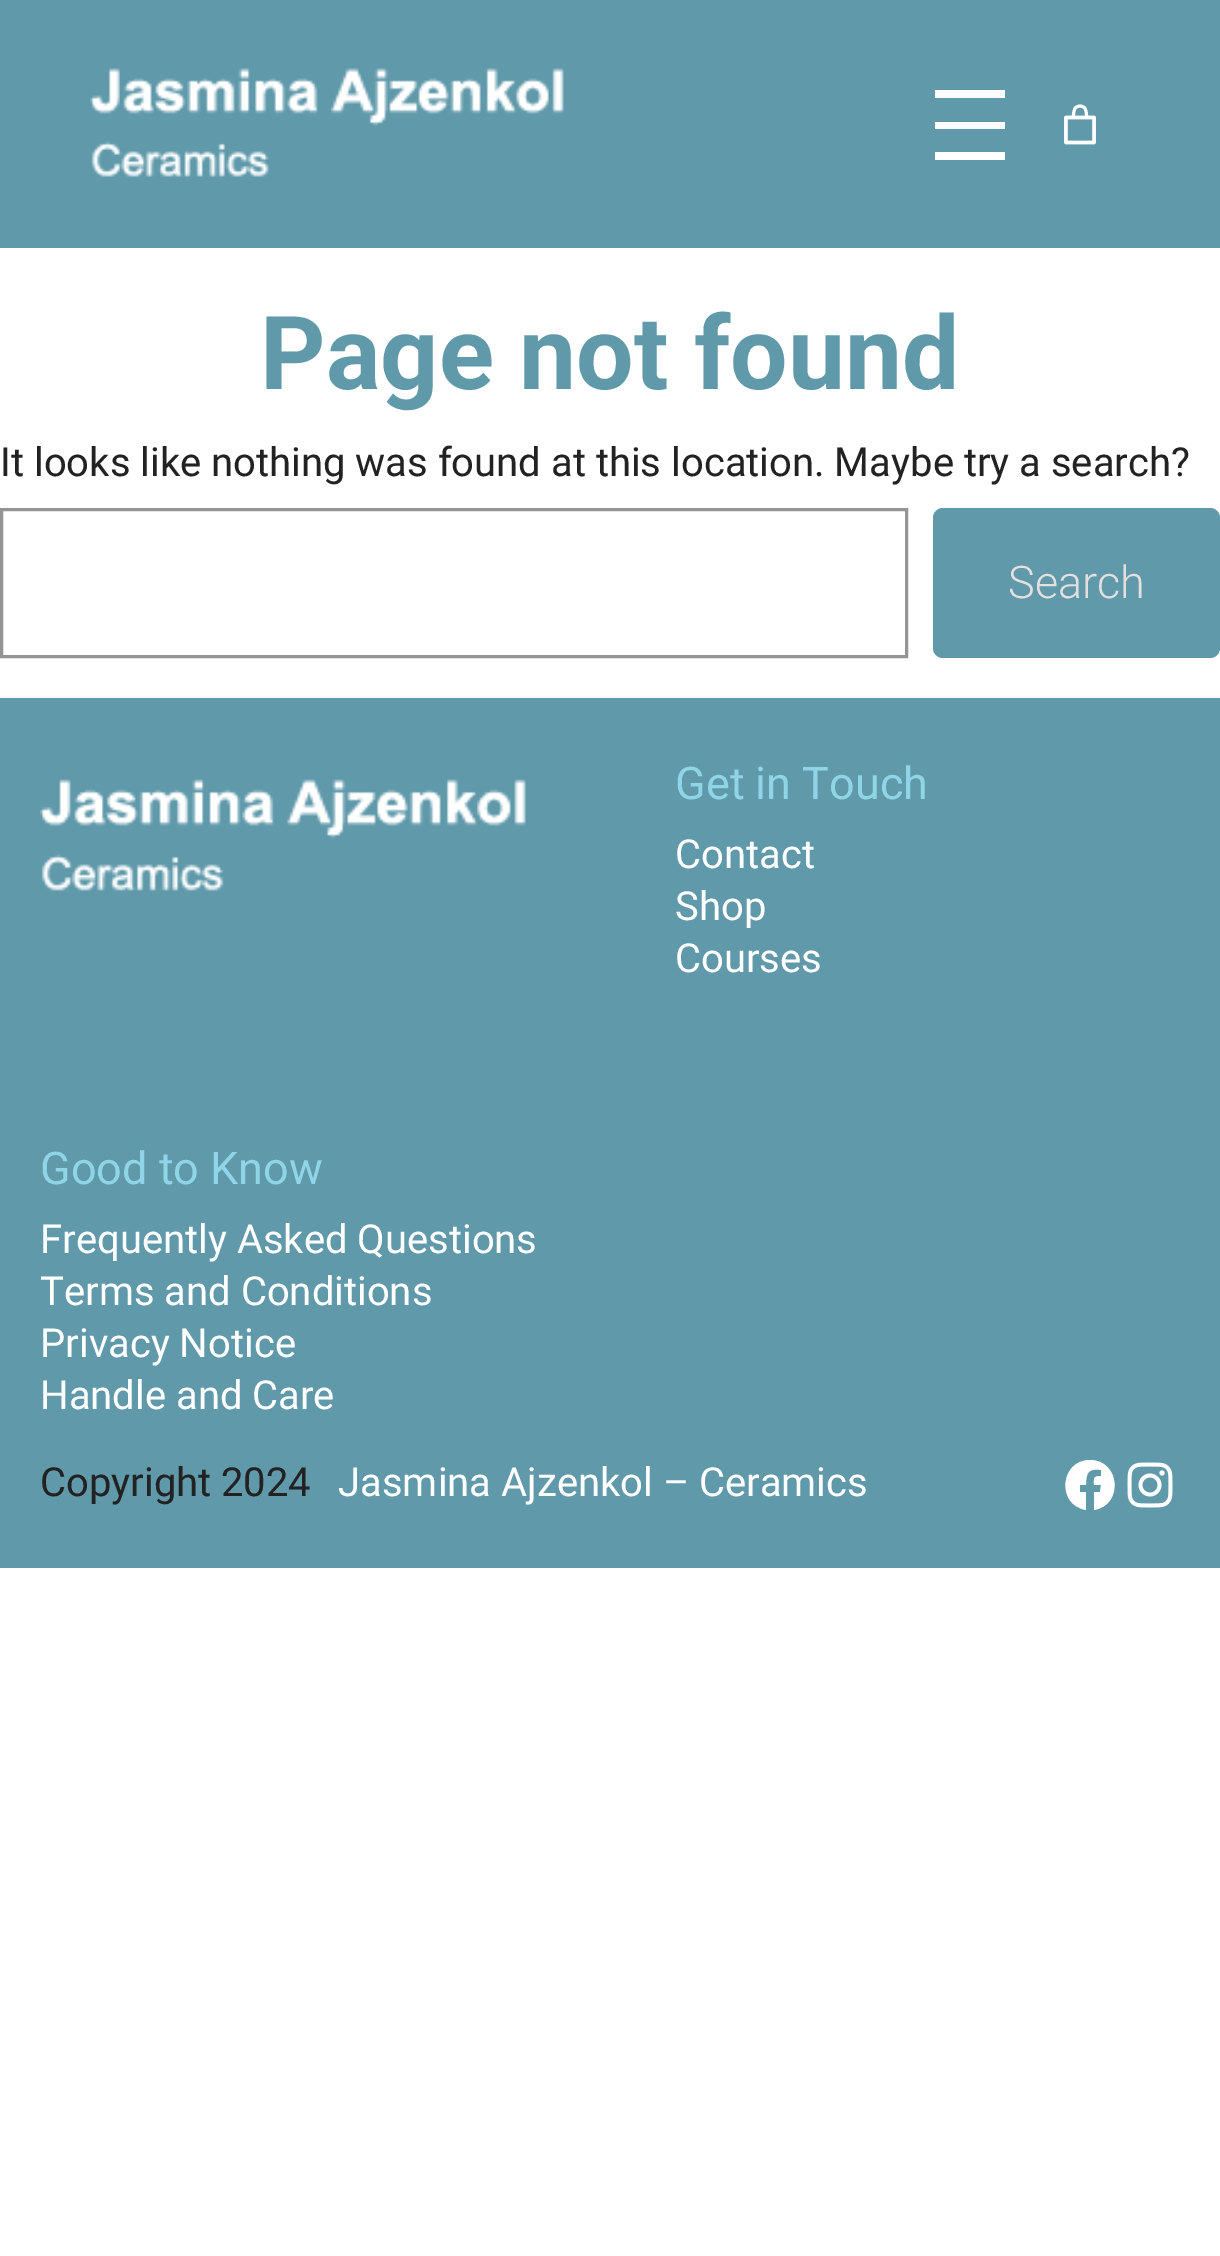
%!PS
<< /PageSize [1220 2256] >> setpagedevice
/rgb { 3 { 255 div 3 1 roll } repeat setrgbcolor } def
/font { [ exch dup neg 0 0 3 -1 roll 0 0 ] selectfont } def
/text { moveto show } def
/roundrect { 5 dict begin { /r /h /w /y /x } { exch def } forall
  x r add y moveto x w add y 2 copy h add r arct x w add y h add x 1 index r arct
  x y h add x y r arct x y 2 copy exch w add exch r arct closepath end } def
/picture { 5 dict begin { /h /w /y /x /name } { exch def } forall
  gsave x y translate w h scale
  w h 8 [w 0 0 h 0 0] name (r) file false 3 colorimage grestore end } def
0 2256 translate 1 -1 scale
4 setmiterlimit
255 255 255 rgb
0 0 1220 2256 rectfill
95 153 170 rgb
0 0 1220 248 rectfill
(img_01.rgb) 90 68 474 109 picture
255 255 255 rgb
935 90 moveto 0 8 rlineto 70 0 rlineto 0 -8 rlineto closepath 935 129 moveto 70 0 rlineto 0 -7 rlineto -70 0 rlineto closepath 935 160 moveto 70 0 rlineto 0 -8 rlineto -70 0 rlineto closepath fill
(img_02.rgb) 1064 104 32 41 picture
148 148 148 rgb
3 setlinewidth
1.5 509.5 905 147 rectstroke
95 153 170 rgb
933 508 287 150 10 roundrect fill
0 698 1220 870 rectfill
(img_03.rgb) 40 779 486 112 picture
255 255 255 rgb
1090 1460 moveto -30 0 -34 45 -4 50 rcurveto 0 -18 rlineto -6 0 rlineto 0 -7 rlineto 6 0 rlineto 0 -12 2 -17 15 -15 rcurveto 0 6 rlineto -8 0 -7 2 -7 9 rcurveto 7 0 rlineto -1 7 rlineto -6 0 rlineto 0 18 rlineto 30 -5 26 -50 -4 -50 rcurveto closepath fill
(img_04.rgb) 1127 1462 46 46 picture
/Roboto-Bold 102 font
95 153 170 rgb
(Page not found) 260 389 text
/Roboto-Regular 40 font
34 34 34 rgb
(It looks like nothing was found at this location. Maybe try a search?) 0 476 text
/Roboto-Light 45 font
228 224 224 rgb
(Search) 1008 598 text
/Roboto-Regular 45 font
144 212 232 rgb
(Get in Touch) 675 799 text
/Roboto-Regular 40 font
255 255 255 rgb
(Contact) 675 868 text
(Shop) 675 920 text
(Courses) 675 972 text
/Roboto-Regular 45 font
144 212 232 rgb
(Good to Know) 40 1184 text
/Roboto-Regular 40 font
255 255 255 rgb
(Frequently Asked Questions) 40 1253 text
(Terms and Conditions) 40 1305 text
(Privacy Notice) 40 1357 text
(Handle and Care) 40 1409 text
34 34 34 rgb
(Copyright 2024) 40 1496 text
255 255 255 rgb
(Jasmina Ajzenkol – Ceramics) 338 1496 text
showpage
